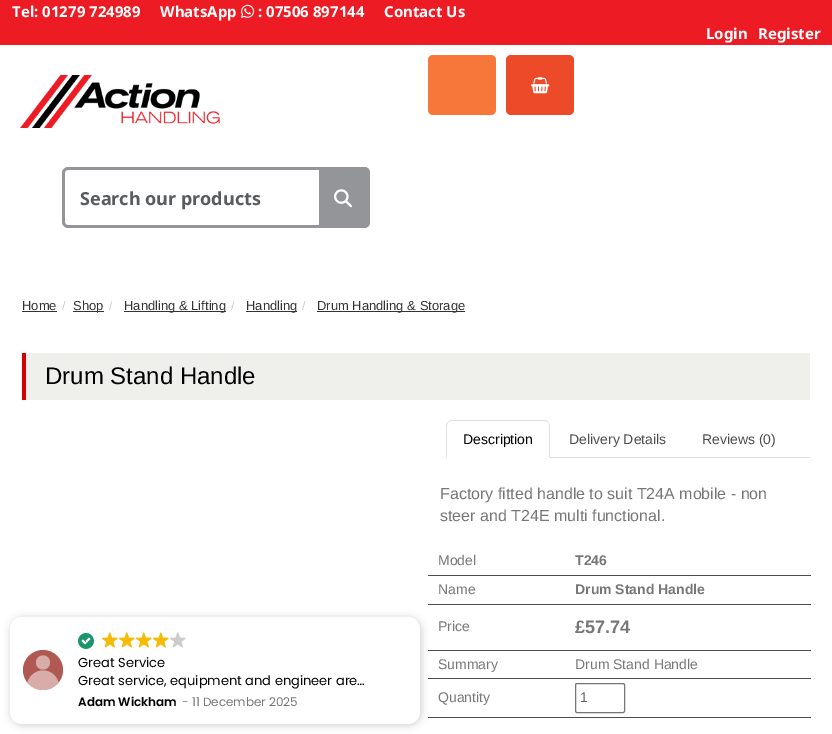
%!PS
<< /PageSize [832 734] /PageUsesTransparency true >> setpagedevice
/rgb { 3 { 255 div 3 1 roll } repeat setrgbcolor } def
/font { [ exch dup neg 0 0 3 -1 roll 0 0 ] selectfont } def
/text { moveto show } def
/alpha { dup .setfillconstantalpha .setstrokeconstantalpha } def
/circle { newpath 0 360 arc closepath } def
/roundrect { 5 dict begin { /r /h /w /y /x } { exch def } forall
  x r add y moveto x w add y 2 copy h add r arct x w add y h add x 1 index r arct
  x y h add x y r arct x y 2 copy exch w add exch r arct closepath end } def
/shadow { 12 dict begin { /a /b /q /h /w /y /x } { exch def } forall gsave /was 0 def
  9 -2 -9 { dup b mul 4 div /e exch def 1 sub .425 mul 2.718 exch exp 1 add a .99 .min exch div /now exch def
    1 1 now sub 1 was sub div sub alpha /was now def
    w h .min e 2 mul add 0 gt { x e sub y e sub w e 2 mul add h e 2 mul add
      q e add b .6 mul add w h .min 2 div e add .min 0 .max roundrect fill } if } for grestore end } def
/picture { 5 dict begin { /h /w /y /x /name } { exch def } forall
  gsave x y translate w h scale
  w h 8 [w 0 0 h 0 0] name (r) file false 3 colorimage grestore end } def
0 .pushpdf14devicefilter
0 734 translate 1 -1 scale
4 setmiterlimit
255 255 255 rgb
0 0 832 734 rectfill
237 28 36 rgb
0 0 832 45 rectfill
(img_01.rgb) 241 4 14 14 picture
(img_02.rgb) 20 75 200 53 picture
247 119 59 rgb
428 55 68 60 5 roundrect fill
237 74 41 rgb
506 55 68 60 5 roundrect fill
(img_03.rgb) 531 77 19 17 picture
147 149 152 rgb
68 167 moveto 251 0 rlineto 0 61 rlineto -251 0 rlineto -3 0 -6 -3 -6 -6 rcurveto 0 -49 rlineto 0 -3 3 -6 6 -6 rcurveto closepath 68 170 moveto 251 0 rlineto 0 55 rlineto -251 0 rlineto -2 0 -3 -1 -3 -3 rcurveto 0 -49 rlineto 0 -2 1 -3 3 -3 rcurveto closepath eofill
319 167 moveto 45 0 rlineto 3.5 0 6 2.5 6 6 rcurveto 0 49 rlineto 0 3.5 -2.5 6 -6 6 rcurveto -45 0 rlineto closepath fill
319 167 moveto 45 0 rlineto 3 0 6 3 6 6 rcurveto 0 49 rlineto 0 3 -3 6 -6 6 rcurveto -45 0 rlineto closepath 319 170 moveto 45 0 rlineto 2 0 3 1 3 3 rcurveto 0 49 rlineto 0 2 -1 3 -3 3 rcurveto -45 0 rlineto closepath eofill
(img_04.rgb) 334 189 18 19 picture
51 51 51 rgb
22 311 35 1 rectfill
73 311 31 1 rectfill
124 311 102 1 rectfill
246 311 51 1 rectfill
317 311 148 1 rectfill
239 239 236 rgb
26 353 784 47 rectfill
212 2 2 rgb
22 353 4 47 rectfill
222 226 230 rgb
550 457 260 1 rectfill
452 420 moveto -2 0 -3 1 -4 2 rcurveto 1 0 2 -1 4 -1 rcurveto 92 0 rlineto 2 0 3 1 4 1 rcurveto -1 -1 -2 -2 -4 -2 rcurveto closepath fill
550 458 moveto 0 -32 rlineto 0 -1.5 -1 -3 -2 -4 rcurveto -0.5 0.5 rlineto 1 0.5 1.5 2 1.5 3.5 rcurveto 0 31 rlineto closepath fill
255 255 255 rgb
550 458 moveto -1 -1 rlineto -102 0 rlineto -1 1 rlineto closepath fill
222 226 230 rgb
446 458 moveto 1 -1 rlineto 0 -31 rlineto 0 -1.5 0.5 -3 1.5 -3.5 rcurveto -0.5 -0.5 rlineto -1 1 -2 2.5 -2 4 rcurveto closepath fill
77 77 77 rgb
428 575 383 1 rectfill
428 604 383 1 rectfill
428 650 383 1 rectfill
428 678 383 1 rectfill
428 717 383 1 rectfill
118 118 118 rgb
575.5 683.5 49 29 1.5 roundrect stroke
0 0 0 rgb
11 618 410 107 12 4 0.2 shadow
255 255 255 rgb
10 617 410 107 12 roundrect fill
176 89 82 rgb
43 670 20 circle fill
216 172 169 rgb
43 662.5 7 circle fill
0.5 alpha
255 255 255 rgb
43 670.5 moveto 7.5 0 13.5 5 15.5 12 rcurveto -7.5 10 -23.5 10 -31 0 rcurveto 2 -7 8 -12 15.5 -12 rcurveto closepath fill
1 alpha
(img_05.rgb) 78 633 16 16 picture
(img_06.rgb) 102 632 16 16 picture
(img_06.rgb) 119 632 16 16 picture
(img_06.rgb) 136 632 16 16 picture
(img_06.rgb) 153 632 16 16 picture
(img_07.rgb) 170 632 16 16 picture
/NotoSans-Bold 15 font
(Tel: 01279 724989) 12 17 text
(WhatsApp) 160 17 text
(: 07506 897144) 258 17 text
(Contact Us) 384 17 text
(Login) 706 39 text
(Register) 758 39 text
/NotoSans-Bold 18 font
89 92 95 rgb
(Search our products) 80 205 text
/LiberationSans-Regular 13 font
51 51 51 rgb
(Home) 22 310 text
/LiberationSans-Regular 12 font
204 204 204 rgb
(/) 62 310 text
/LiberationSans-Regular 13 font
51 51 51 rgb
(Shop) 73 310 text
/LiberationSans-Regular 12 font
204 204 204 rgb
(/) 109 310 text
/LiberationSans-Regular 13 font
51 51 51 rgb
(Handling & Lifting) 124 310 text
/LiberationSans-Regular 12 font
204 204 204 rgb
(/) 231 310 text
/LiberationSans-Regular 13 font
51 51 51 rgb
(Handling) 246 310 text
/LiberationSans-Regular 12 font
204 204 204 rgb
(/) 302 310 text
/LiberationSans-Regular 13 font
51 51 51 rgb
(Drum Handling & Storage) 317 310 text
/LiberationSans-Regular 24 font
0 0 0 rgb
(Drum Stand Handle) 45 384 text
/LiberationSans-Regular 14 font
(Description) 463 444 text
77 77 77 rgb
(Delivery Details) 569 444 text
(Reviews \(0\)) 702 444 text
/LiberationSans-Regular 16 font
119 119 119 rgb
(Factory fitted handle to suit T24A mobile - non) 440 499 text
(steer and T24E multi functional.) 440 521 text
/LiberationSans-Regular 14 font
(Model) 438 565 text
/LiberationSans-Bold 14 font
(T246) 575 565 text
/LiberationSans-Regular 14 font
(Name) 438 594 text
/LiberationSans-Bold 14 font
(Drum Stand Handle) 575 594 text
/LiberationSans-Regular 14 font
(Price) 438 631 text
/LiberationSans-Bold 18 font
(£57.74) 575 633 text
/LiberationSans-Regular 14 font
(Summary) 438 669 text
(Drum Stand Handle) 575 669 text
(Quantity) 438 702 text
102 102 102 rgb
(1) 580 702 text
/Poppins-Regular 13 font
0 0 0 rgb
(Great Service) 78 667 text
(Great service, equipment and engineer are…) 78 685 text
/Poppins-SemiBold 12 font
(Adam Wickham) 78 706 text
/Poppins-Regular 12 font
119 119 119 rgb
(- 11 December 2025) 182 706 text
.poppdf14devicefilter showpage
